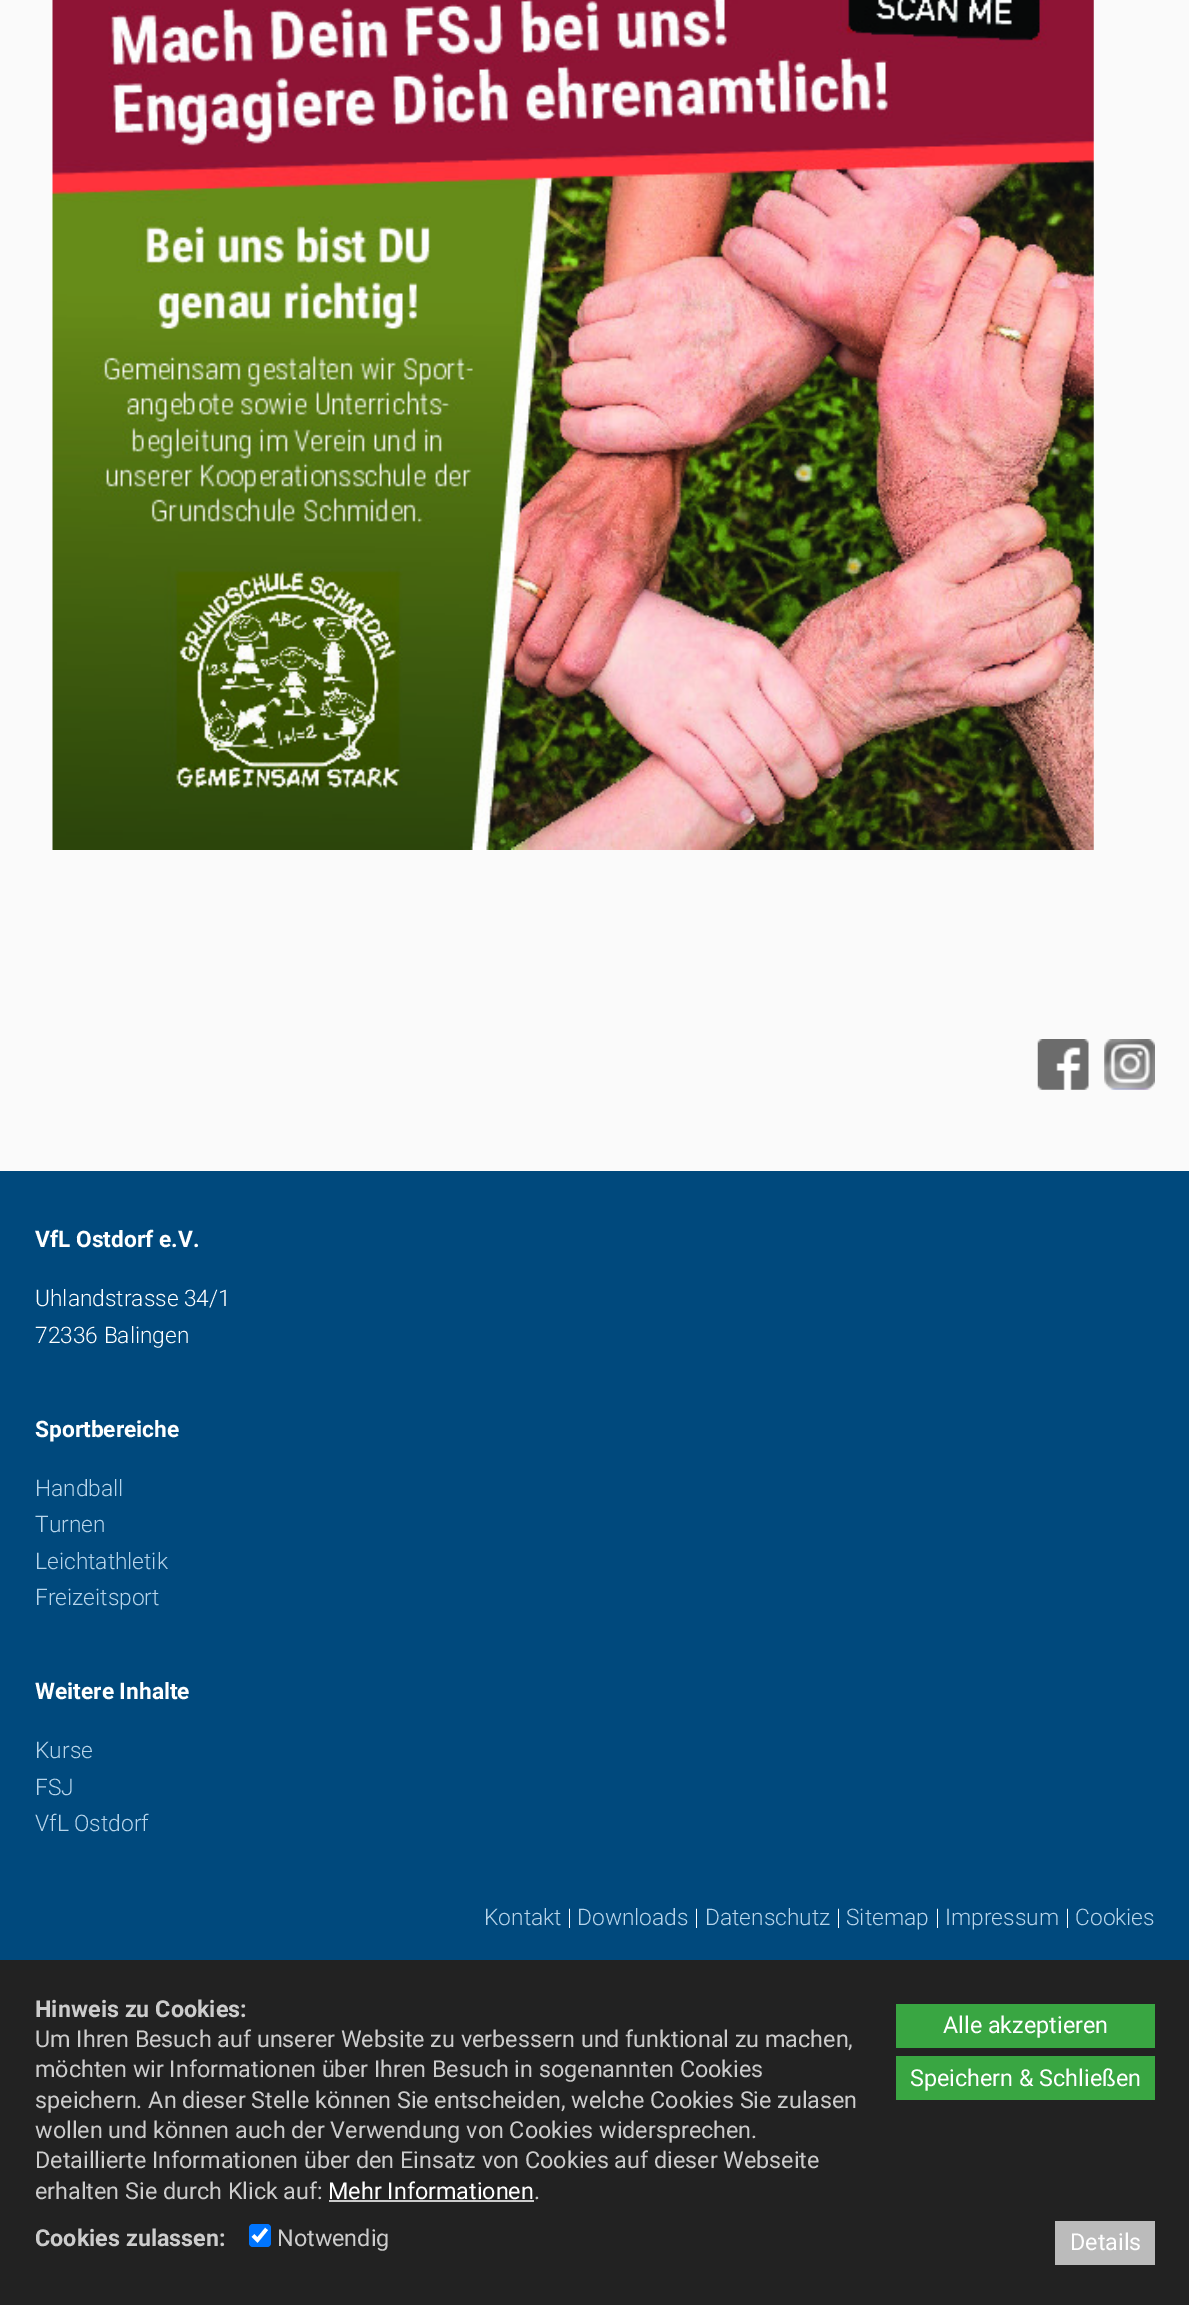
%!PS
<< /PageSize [1189 2305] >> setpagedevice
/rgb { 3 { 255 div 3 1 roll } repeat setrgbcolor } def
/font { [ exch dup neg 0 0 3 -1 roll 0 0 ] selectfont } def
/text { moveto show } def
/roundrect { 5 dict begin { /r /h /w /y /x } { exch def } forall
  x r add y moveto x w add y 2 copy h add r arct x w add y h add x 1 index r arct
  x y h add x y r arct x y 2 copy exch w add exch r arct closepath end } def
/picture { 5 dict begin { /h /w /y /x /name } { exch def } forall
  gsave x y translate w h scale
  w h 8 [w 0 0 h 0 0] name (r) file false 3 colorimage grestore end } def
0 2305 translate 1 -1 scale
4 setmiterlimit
250 250 250 rgb
0 0 1189 2305 rectfill
(img_01.rgb) 52 0 1042 850 picture
(img_02.rgb) 1037 1039 52 51 picture
(img_03.rgb) 1104 1039 51 51 picture
0 73 125 rgb
0 1171 1189 789 rectfill
34 34 34 rgb
0 1960 1189 345 rectfill
204 204 204 rgb
329 2200 205 2 rectfill
57 166 66 rgb
896 2004 259 44 rectfill
896 2056 259 44 rectfill
0 117 255 rgb
249 2224 22 23 4 roundrect fill
255 255 255 rgb
3.6 setlinewidth
253 2235.5 moveto 4.5 4.5 rlineto 9 -11 rlineto stroke
187 187 187 rgb
1055 2221 100 44 rectfill
/Roboto-Bold 22.75 font
255 255 255 rgb
(VfL Ostdorf e.V.) 35 1247 text
/Roboto-Light 22.75 font
(Uhlandstrasse 34/1) 35 1306 text
(72336 Balingen) 35 1343 text
/Roboto-Bold 22.75 font
(Sportbereiche) 35 1437 text
/Roboto-Light 22.75 font
183 213 235 rgb
(Handball) 35 1496 text
(Turnen) 35 1532 text
(Leichtathletik) 35 1569 text
(Freizeitsport) 35 1605 text
/Roboto-Bold 22.75 font
255 255 255 rgb
(Weitere Inhalte) 35 1699 text
/Roboto-Light 22.75 font
183 213 235 rgb
(Kurse) 35 1758 text
(FSJ) 35 1795 text
(VfL Ostdorf) 35 1831 text
(Kontakt) 484 1925 text
255 255 255 rgb
(|) 567 1925 text
183 213 235 rgb
(Downloads) 577 1925 text
255 255 255 rgb
(|) 694 1925 text
183 213 235 rgb
(Datenschutz) 705 1925 text
255 255 255 rgb
(|) 836 1925 text
183 213 235 rgb
(Sitemap) 846 1925 text
255 255 255 rgb
(|) 935 1925 text
183 213 235 rgb
(Impressum) 945 1925 text
255 255 255 rgb
(|) 1065 1925 text
183 213 235 rgb
(Cookies) 1075 1925 text
/Roboto-Bold 23.35 font
204 204 204 rgb
(Hinweis zu Cookies:) 35 2017 text
/Roboto-Regular 23.35 font
(Um Ihren Besuch auf unserer Website zu verbessern und funktional zu machen,) 35 2047 text
(möchten wir Informationen über Ihren Besuch in sogenannten Cookies) 35 2077 text
(speichern. An dieser Stelle können Sie entscheiden, welche Cookies Sie zulasen) 35 2108 text
(wollen und können auch der Verwendung von Cookies widersprechen.) 35 2138 text
(Detaillierte Informationen über den Einsatz von Cookies auf dieser Webseite) 35 2168 text
(erhalten Sie durch Klick auf:) 35 2199 text
255 255 255 rgb
(Mehr Informationen) 328 2199 text
204 204 204 rgb
(.) 534 2199 text
255 255 255 rgb
(Alle akzeptieren) 943 2033 text
(Speichern & Schließen) 910 2086 text
/Roboto-Bold 23.35 font
204 204 204 rgb
(Cookies zulassen:) 35 2246 text
/Roboto-Regular 23.35 font
(Notwendig) 277 2246 text
255 255 255 rgb
(Details) 1070 2250 text
showpage
